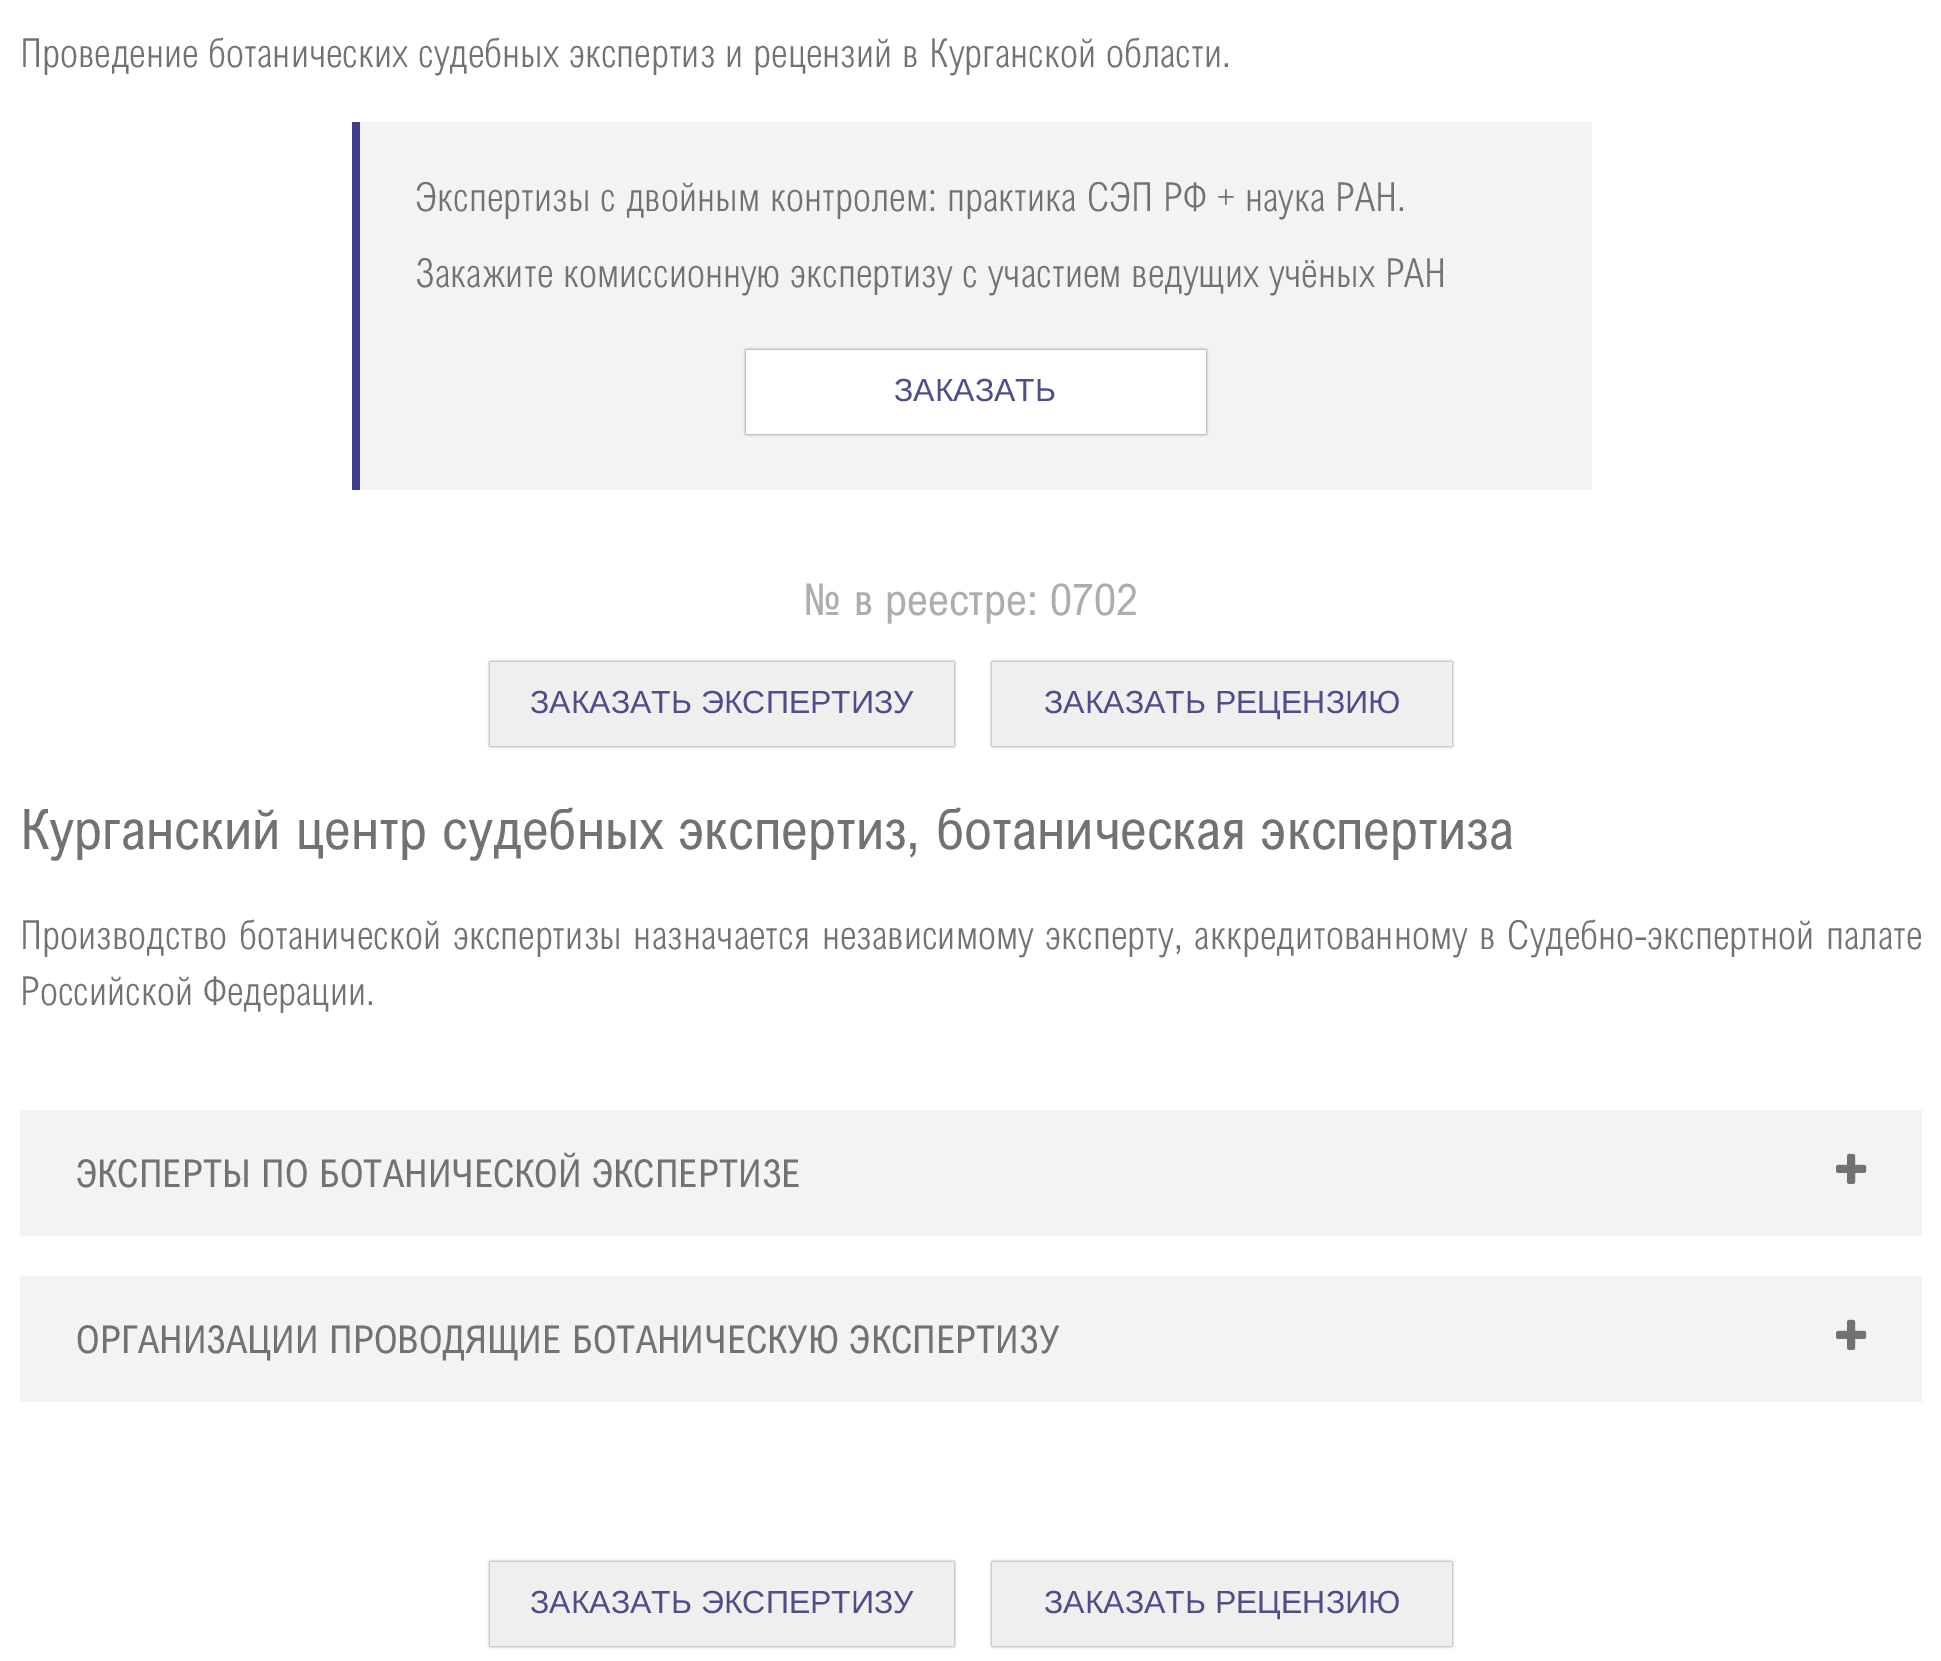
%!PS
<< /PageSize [1941 1661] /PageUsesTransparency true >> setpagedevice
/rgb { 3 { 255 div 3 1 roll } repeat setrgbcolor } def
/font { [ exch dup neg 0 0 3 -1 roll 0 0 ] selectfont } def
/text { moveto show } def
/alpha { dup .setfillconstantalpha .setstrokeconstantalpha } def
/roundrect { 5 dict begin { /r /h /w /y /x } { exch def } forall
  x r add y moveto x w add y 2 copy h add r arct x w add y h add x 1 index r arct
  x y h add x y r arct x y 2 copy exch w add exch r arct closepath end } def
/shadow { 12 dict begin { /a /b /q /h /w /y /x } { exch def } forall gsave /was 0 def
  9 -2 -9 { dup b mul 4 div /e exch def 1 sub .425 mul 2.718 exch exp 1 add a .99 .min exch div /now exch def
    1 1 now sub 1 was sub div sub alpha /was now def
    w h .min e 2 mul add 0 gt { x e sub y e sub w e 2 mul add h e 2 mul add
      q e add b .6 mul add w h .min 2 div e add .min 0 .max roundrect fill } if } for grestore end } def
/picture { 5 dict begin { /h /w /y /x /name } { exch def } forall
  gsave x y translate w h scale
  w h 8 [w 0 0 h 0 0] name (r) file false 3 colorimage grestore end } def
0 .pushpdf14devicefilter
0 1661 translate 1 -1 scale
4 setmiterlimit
255 255 255 rgb
0 0 1941 1661 rectfill
243 243 243 rgb
360 122 1232 368 rectfill
64 63 139 rgb
352 122 8 368 rectfill
0 0 0 rgb
746 350 460 84 0 1.5 0.5 shadow
255 255 255 rgb
746 350 460 84 rectfill
0 0 0 rgb
490 662 464 84 0 1.5 0.5 shadow
239 239 239 rgb
490 662 464 84 rectfill
0 0 0 rgb
992 662 460 84 0 1.5 0.5 shadow
239 239 239 rgb
992 662 460 84 rectfill
243 243 243 rgb
20 1110 1902 126 rectfill
(img_01.rgb) 1836 1153 31 31 picture
20 1276 1902 126 rectfill
(img_01.rgb) 1836 1319 31 31 picture
0 0 0 rgb
490 1562 464 84 0 1.5 0.5 shadow
239 239 239 rgb
490 1562 464 84 rectfill
0 0 0 rgb
992 1562 460 84 0 1.5 0.5 shadow
239 239 239 rgb
992 1562 460 84 rectfill
/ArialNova-Light 40 font
114 114 113 rgb
(Проведение ботанических судебных экспертиз и рецензий в Курганской области.) 20 67 text
(Экспертизы с двойным контролем: практика СЭП РФ + наука РАН.) 415 211 text
(Закажите комиссионную экспертизу с участием ведущих учёных РАН) 415 287 text
/LiberationSans-Regular 32 font
77 77 136 rgb
(ЗАКАЗАТЬ) 894 401 text
/ArialNova-Regular 44 font
173 173 173 rgb
(№ в реестре: 0702) 803 615 text
/LiberationSans-Regular 32 font
77 77 136 rgb
(ЗАКАЗАТЬ ЭКСПЕРТИЗУ) 530 713 text
(ЗАКАЗАТЬ РЕЦЕНЗИЮ) 1044 713 text
/ArialNova-Regular 56 font
114 114 113 rgb
(Курганский центр судебных экспертиз, ботаническая экспертиза) 20 849 text
/ArialNova-Light 40 font
20 949 moveto 1.75 0 32 (Производство ботанической экспертизы назначается независимому эксперту, аккредитованному в Судебно-экспертной палате) widthshow
(Российской Федерации.) 20 1005 text
/ArialNova-Regular 38.4 font
(ЭКСПЕРТЫ ПО БОТАНИЧЕСКОЙ ЭКСПЕРТИЗЕ) 76 1187 text
(ОРГАНИЗАЦИИ ПРОВОДЯЩИЕ БОТАНИЧЕСКУЮ ЭКСПЕРТИЗУ) 76 1353 text
/LiberationSans-Regular 32 font
77 77 136 rgb
(ЗАКАЗАТЬ ЭКСПЕРТИЗУ) 530 1613 text
(ЗАКАЗАТЬ РЕЦЕНЗИЮ) 1044 1613 text
.poppdf14devicefilter showpage
